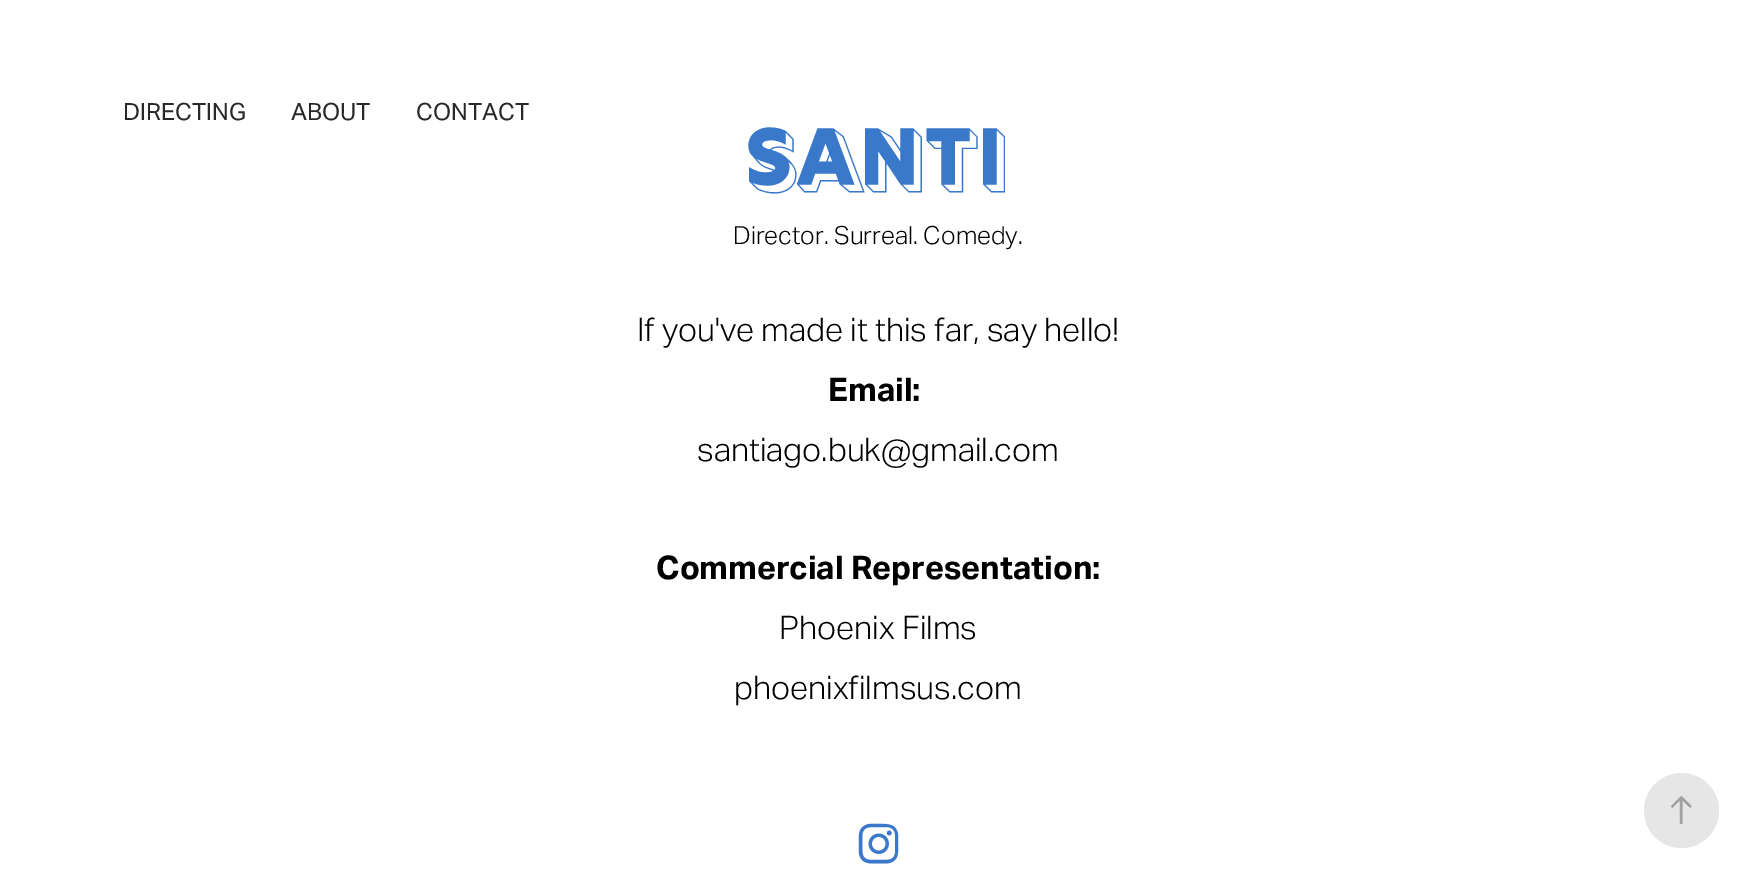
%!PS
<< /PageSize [1756 885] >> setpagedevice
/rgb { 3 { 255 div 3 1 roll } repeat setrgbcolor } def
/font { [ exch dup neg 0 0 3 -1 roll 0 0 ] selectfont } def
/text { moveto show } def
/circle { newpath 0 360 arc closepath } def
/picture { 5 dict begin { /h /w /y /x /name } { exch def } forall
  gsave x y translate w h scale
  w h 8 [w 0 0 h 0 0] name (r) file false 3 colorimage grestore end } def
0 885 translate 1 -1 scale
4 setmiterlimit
255 255 255 rgb
0 0 1756 885 rectfill
230 230 230 rgb
1681.5 810.5 37.5 circle fill
(img_01.rgb) 1671 796 21 29 picture
(img_02.rgb) 858 823 41 41 picture
/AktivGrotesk-Regular 23.75 font
40 40 40 rgb
(DIRECTING) 123 120 text
(ABOUT) 291 120 text
(CONTACT) 416 120 text
/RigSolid-Bold 87.5 font
58 120 201 rgb
(Santi) 747 184 text
/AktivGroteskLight-Light 25 font
0 0 0 rgb
(Director. Surreal. Comedy.) 733 244 text
/AktivGroteskLight-Light 32.5 font
(If you've made it this far, say hello!) 637 341 text
/AktivGrotesk-Bold 32.5 font
(Email:) 828 401 text
/AktivGroteskLight-Light 32.5 font
(santiago.buk@gmail.com) 697 461 text
/AktivGrotesk-Bold 32.5 font
(Commercial Representation:) 656 579 text
/AktivGroteskLight-Light 32.5 font
(Phoenix Films) 779 639 text
(phoenixfilmsus.com) 734 699 text
showpage
